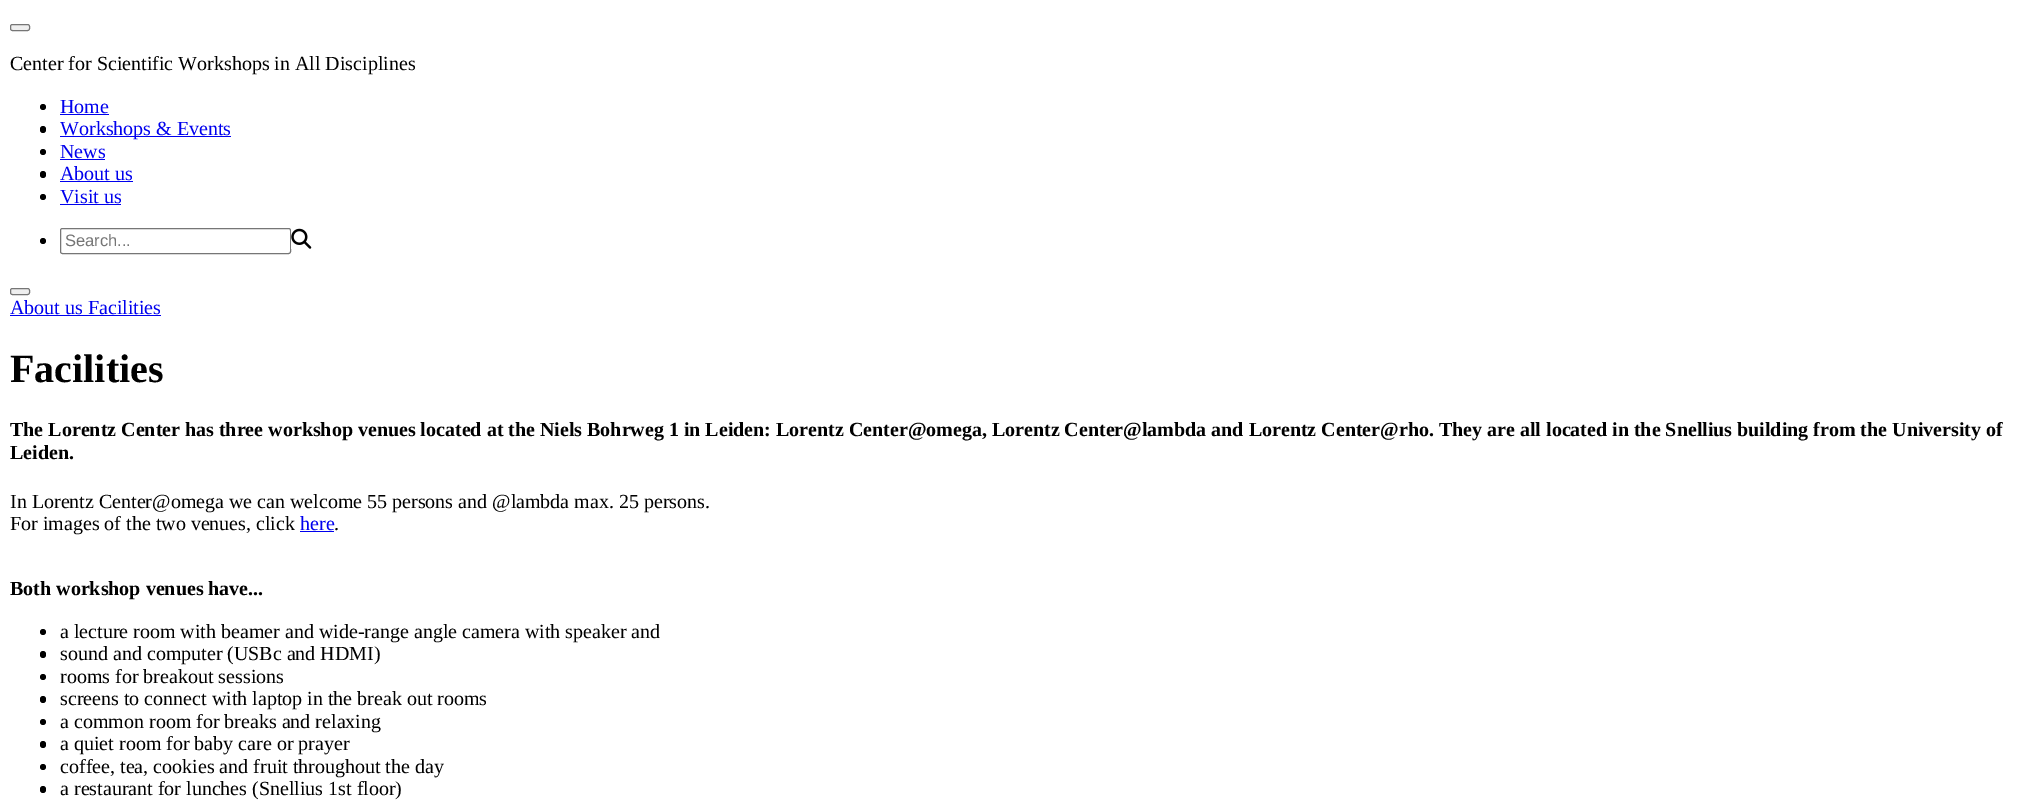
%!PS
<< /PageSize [2021 808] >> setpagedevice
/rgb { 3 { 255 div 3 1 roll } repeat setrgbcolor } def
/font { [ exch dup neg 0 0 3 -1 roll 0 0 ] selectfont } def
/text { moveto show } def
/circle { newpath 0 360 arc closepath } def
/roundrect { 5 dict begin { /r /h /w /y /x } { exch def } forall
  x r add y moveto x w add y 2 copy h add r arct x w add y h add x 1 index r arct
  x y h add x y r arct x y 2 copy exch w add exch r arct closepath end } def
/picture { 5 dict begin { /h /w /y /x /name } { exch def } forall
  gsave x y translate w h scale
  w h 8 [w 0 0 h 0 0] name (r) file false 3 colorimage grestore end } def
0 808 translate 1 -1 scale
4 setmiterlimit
255 255 255 rgb
0 0 2021 808 rectfill
239 239 239 rgb
10.5 24.5 19 6 2 roundrect gsave fill grestore
118 118 118 rgb
stroke
0 0 0 rgb
43 107 3 circle fill
0 0 238 rgb
60 114 49 1 rectfill
0 0 0 rgb
40 126 6 7 3 roundrect fill
0 0 238 rgb
60 136 171 1 rectfill
0 0 0 rgb
43 152 3 circle fill
0 0 238 rgb
60 159 45 1 rectfill
0 0 0 rgb
40 171 6 7 3 roundrect fill
0 0 238 rgb
60 181 73 1 rectfill
0 0 0 rgb
43 197 3 circle fill
0 0 238 rgb
60 204 61 1 rectfill
0 0 0 rgb
43 241 3 circle fill
118 118 118 rgb
60.5 228.5 230 25 2 roundrect stroke
(img_01.rgb) 291 228 21 21 picture
239 239 239 rgb
10.5 288.5 19 6 2 roundrect gsave fill grestore
118 118 118 rgb
stroke
0 0 238 rgb
10 315 151 1 rectfill
300 531 34 1 rectfill
0 0 0 rgb
43 632 3 circle fill
40 651 6 7 3 roundrect fill
43 677 3 circle fill
40 696 6 7 3 roundrect fill
43 722 3 circle fill
40 741 6 7 3 roundrect fill
43 767 3 circle fill
40 786 6 7 3 roundrect fill
/LiberationSerif-Regular 20 font
(Center for Scientific Workshops in All Disciplines) 10 70 text
0 0 238 rgb
(Home) 60 113 text
(Workshops & Events) 60 135 text
(News) 60 158 text
(About us) 60 180 text
(Visit us) 60 203 text
/LiberationSans-Regular 16.5 font
117 117 117 rgb
(Search...) 65 246 text
/LiberationSerif-Regular 20 font
0 0 238 rgb
(About us Facilities) 10 314 text
/LiberationSerif-Bold 40 font
0 0 0 rgb
(Facilities) 10 382 text
/LiberationSerif-Bold 20 font
(The Lorentz Center has three workshop venues located at the Niels Bohrweg 1 in Leiden: Lorentz Center@omega, Lorentz Center@lambda and Lorentz Center@rho. They are all located in the Snellius building from the University of) 10 436 text
(Leiden.) 10 459 text
/LiberationSerif-Regular 20 font
(In Lorentz Center@omega we can welcome 55 persons and @lambda max. 25 persons.) 10 508 text
(For images of the two venues, click) 10 530 text
0 0 238 rgb
(here) 300 530 text
0 0 0 rgb
(.) 334 530 text
/LiberationSerif-Bold 20 font
(Both workshop venues have...) 10 595 text
/LiberationSerif-Regular 20 font
(a lecture room with beamer and wide-range angle camera with speaker and) 60 638 text
(sound and computer \(USBc and HDMI\)) 60 660 text
(rooms for breakout sessions) 60 683 text
(screens to connect with laptop in the break out rooms) 60 705 text
(a common room for breaks and relaxing) 60 728 text
(a quiet room for baby care or prayer) 60 750 text
(coffee, tea, cookies and fruit throughout the day) 60 773 text
(a restaurant for lunches \(Snellius 1st floor\)) 60 795 text
showpage
